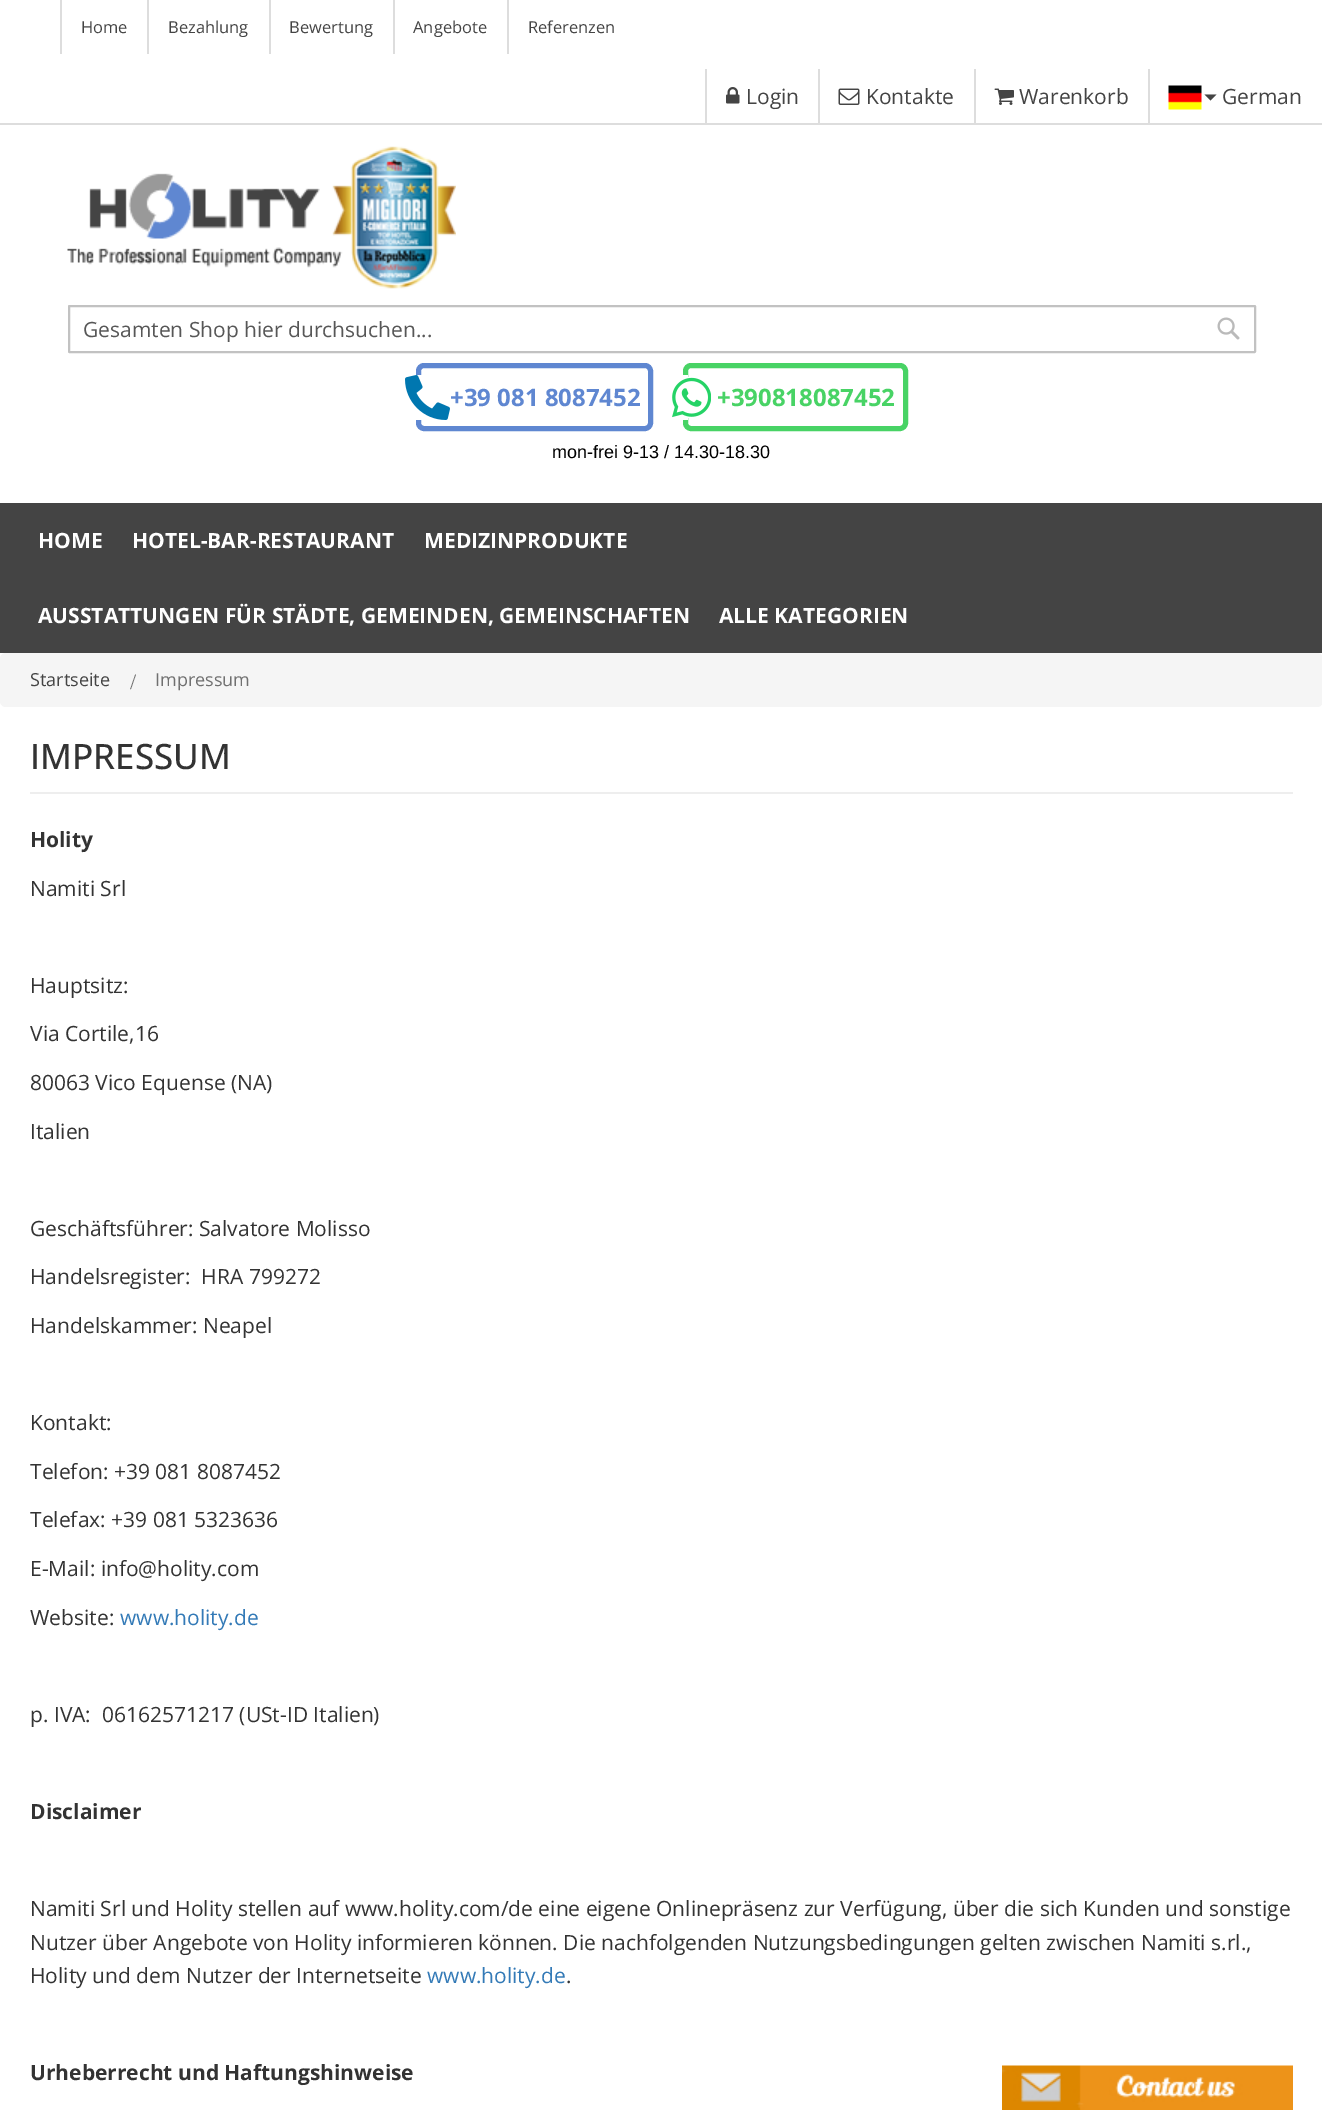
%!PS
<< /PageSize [1322 2110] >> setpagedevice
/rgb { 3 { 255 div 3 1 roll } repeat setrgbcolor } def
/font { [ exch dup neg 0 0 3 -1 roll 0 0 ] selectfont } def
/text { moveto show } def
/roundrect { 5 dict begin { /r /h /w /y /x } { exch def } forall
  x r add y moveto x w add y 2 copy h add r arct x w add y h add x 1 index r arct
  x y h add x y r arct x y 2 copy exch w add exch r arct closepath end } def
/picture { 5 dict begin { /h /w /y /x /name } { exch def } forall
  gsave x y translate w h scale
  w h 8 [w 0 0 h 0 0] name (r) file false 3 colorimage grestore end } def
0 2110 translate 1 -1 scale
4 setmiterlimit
255 255 255 rgb
0 0 1322 2110 rectfill
221 221 221 rgb
0 123 1322 2 rectfill
60 0 2 54 rectfill
147 0 2 54 rectfill
269 0 2 54 rectfill
393 0 2 54 rectfill
507 0 2 54 rectfill
705 69 2 54 rectfill
(img_01.rgb) 726 87 14 17 picture
818 69 2 54 rectfill
(img_02.rgb) 838 88 22 17 picture
974 69 2 54 rectfill
(img_03.rgb) 994 88 20 17 picture
1148 69 2 54 rectfill
(img_04.rgb) 1168 85 34 25 picture
68 68 68 rgb
1204.5 94.5 moveto 12 0 rlineto -6 6 rlineto closepath fill
(img_05.rgb) 67 146 389 143 picture
194 194 194 rgb
2 setlinewidth
69 306 1186 46 0.5 roundrect stroke
(img_06.rgb) 1217 317 23 23 picture
95 135 209 rgb
5 setlinewidth
418.5 365.5 232 63 5.5 roundrect stroke
255 255 255 rgb
416 375 5 45 rectfill
(img_07.rgb) 405 375 45 45 picture
72 211 101 rgb
685.5 365.5 220 63 5.5 roundrect stroke
255 255 255 rgb
683 375 5 45 rectfill
(img_08.rgb) 672 377 39 41 picture
68 68 68 rgb
0 503 1322 150 rectfill
245 245 245 rgb
0 653 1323 54 6 roundrect fill
238 238 238 rgb
30 792 1263 2 rectfill
(img_09.rgb) 1002 2065 291 45 picture
/OpenSans-Regular 16.5 font
68 68 68 rgb
(Home) 81 33 text
(Bezahlung) 168 33 text
(Bewertung) 289 33 text
(Angebote) 413 33 text
(Referenzen) 528 33 text
/OpenSans-Regular 21 font
(Login) 746 104 text
(Kontakte) 866 104 text
(Warenkorb) 1019 104 text
(German) 1222 104 text
87 87 87 rgb
(Gesamten Shop hier durchsuchen...) 83 337 text
/OpenSans-Bold 24 font
95 135 209 rgb
(+39 081 8087452) 450 406 text
72 211 101 rgb
(+390818087452) 717 406 text
/LiberationSans-Regular 18 font
0 0 0 rgb
(mon-frei 9-13 / 14.30-18.30) 552 458 text
/OpenSans-Bold 21 font
255 255 255 rgb
(HOME) 38 548 text
(HOTEL-BAR-RESTAURANT) 132 548 text
(MEDIZINPRODUKTE) 424 548 text
(AUSSTATTUNGEN FÜR STÄDTE, GEMEINDEN, GEMEINSCHAFTEN) 38 623 text
(ALLE KATEGORIEN) 719 623 text
/OpenSans-Regular 18 font
68 68 68 rgb
(Startseite) 30 686 text
/LiberationSerif-Regular 22 font
112 112 112 rgb
(/) 130 689 text
/OpenSans-Regular 18 font
(Impressum) 155 686 text
/OpenSans-Medium 35 font
51 51 51 rgb
(IMPRESSUM) 30 769 text
/OpenSans-Bold 21 font
(Holity) 30 847 text
/OpenSans-Regular 21 font
(Namiti Srl) 30 896 text
(Hauptsitz:) 30 993 text
(Via Cortile,16) 30 1041 text
(80063 Vico Equense \(NA\)) 30 1090 text
(Italien) 30 1139 text
(Geschäftsführer: Salvatore Molisso) 30 1236 text
(Handelsregister:  HRA 799272) 30 1284 text
(Handelskammer: Neapel) 30 1333 text
(Kontakt:) 30 1430 text
(Telefon: +39 081 8087452) 30 1479 text
(Telefax: +39 081 5323636) 30 1527 text
(E-Mail: info@holity.com) 30 1576 text
(Website:) 30 1625 text
51 122 183 rgb
(www.holity.de) 120 1625 text
51 51 51 rgb
(p. IVA:  06162571217 \(USt-ID Italien\)) 30 1722 text
/OpenSans-Bold 21 font
(Disclaimer) 30 1819 text
/OpenSans-Regular 21 font
(Namiti Srl und Holity stellen auf www.holity.com/de eine eigene Onlinepräsenz zur Verfügung, über die sich Kunden und sonstige) 30 1916 text
(Nutzer über Angebote von Holity informieren können. Die nachfolgenden Nutzungsbedingungen gelten zwischen Namiti s.rl.,) 30 1950 text
(Holity und dem Nutzer der Internetseite) 30 1983 text
51 122 183 rgb
(www.holity.de) 427 1983 text
51 51 51 rgb
(.) 566 1983 text
/OpenSans-Bold 21 font
(Urheberrecht und Haftungshinweise) 30 2080 text
showpage
